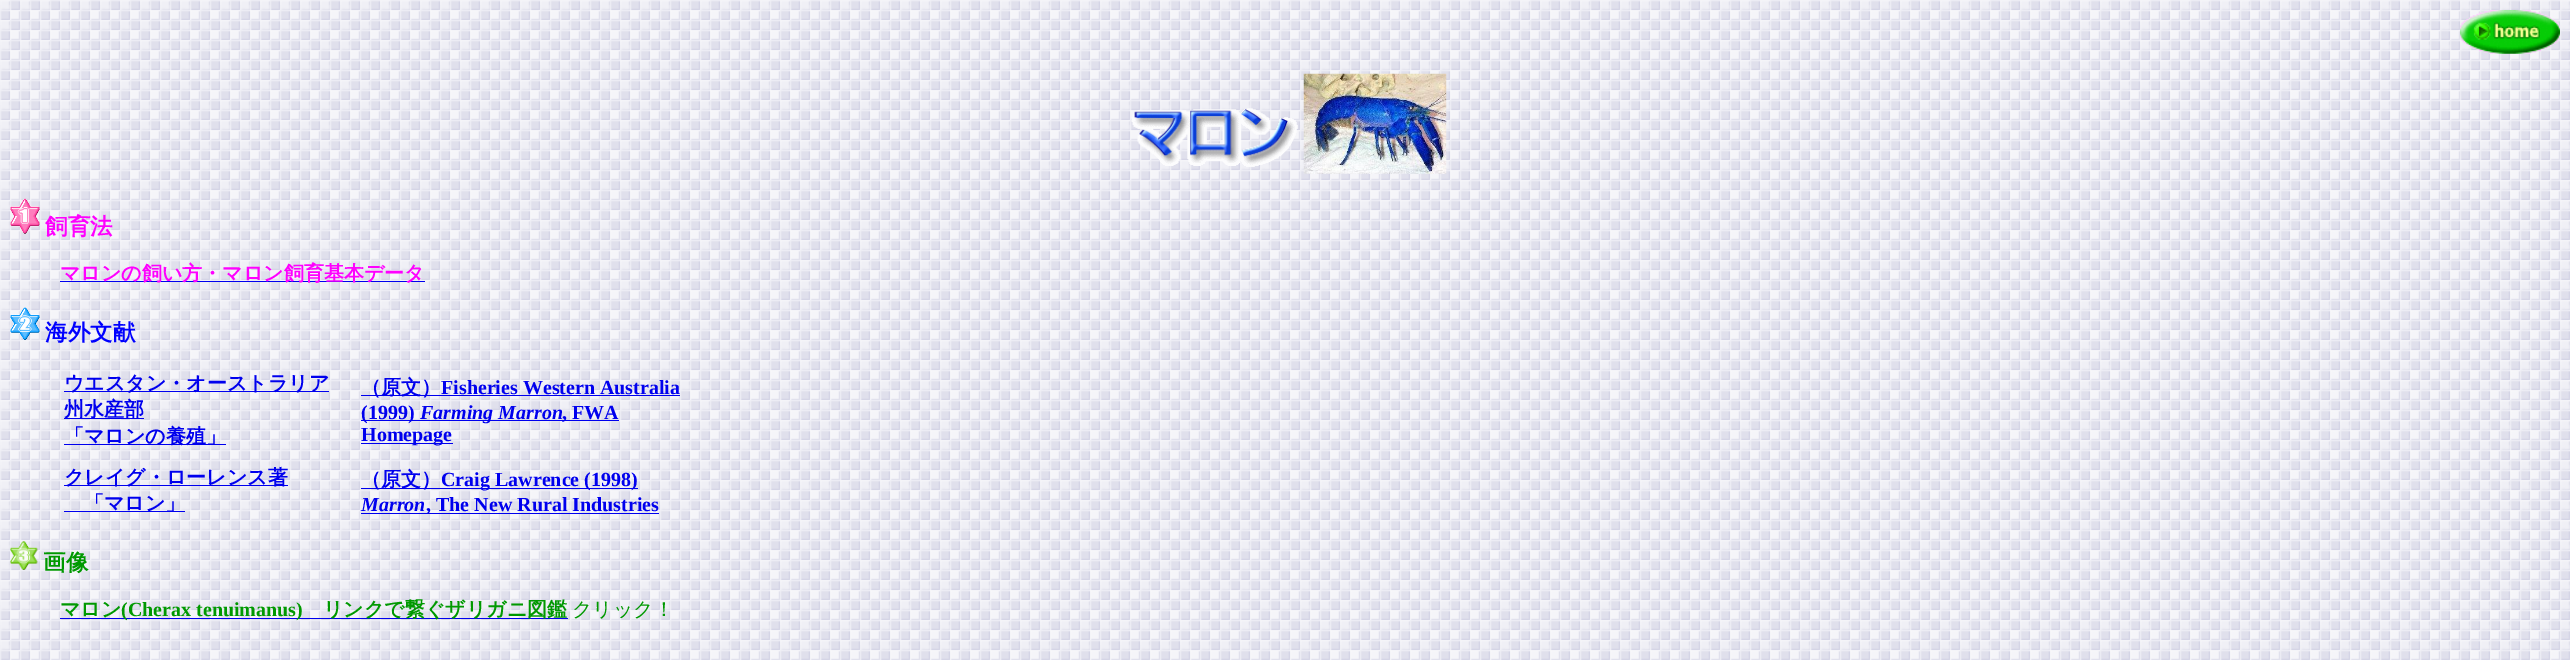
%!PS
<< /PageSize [2570 660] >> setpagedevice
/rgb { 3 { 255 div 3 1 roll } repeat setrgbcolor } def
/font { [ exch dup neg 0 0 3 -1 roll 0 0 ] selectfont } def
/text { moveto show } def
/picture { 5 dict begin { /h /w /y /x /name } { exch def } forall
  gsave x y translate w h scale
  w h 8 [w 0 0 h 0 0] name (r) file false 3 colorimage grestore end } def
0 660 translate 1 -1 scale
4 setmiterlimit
255 255 255 rgb
0 0 2570 660 rectfill
(img_01.rgb) 0 0 2570 660 picture
(img_02.rgb) 2460 10 100 44 picture
(img_03.rgb) 1131 108 167 59 picture
(img_04.rgb) 1303 73 144 101 picture
(img_05.rgb) 10 198 30 36 picture
0 0 238 rgb
60 281 365 1 rectfill
(img_06.rgb) 10 307 30 33 picture
64 391 265 1 rectfill
64 418 80 1 rectfill
64 444 162 1 rectfill
361 395 319 1 rectfill
361 420 258 1 rectfill
361 443 92 1 rectfill
64 485 224 1 rectfill
64 511 121 1 rectfill
361 488 277 1 rectfill
361 513 298 1 rectfill
(img_07.rgb) 10 541 28 29 picture
60 618 508 1 rectfill
/WenQuanYiZenHei-Bold 22.5 font
255 0 255 rgb
(飼育法) 45 234 text
/WenQuanYiZenHei-Bold 20 font
(マロンの飼い方・マロン飼育基本データ) 60 280 text
/WenQuanYiZenHei-Bold 22.5 font
0 0 255 rgb
(海外文献) 45 340 text
/WenQuanYiZenHei-Bold 20 font
0 0 238 rgb
(ウエスタン・オーストラリア) 64 390 text
(州水産部) 64 416 text
(「マロンの養殖」) 64 443 text
(（原文）) 361 394 text
/LiberationSerif-Bold 20 font
(Fisheries Western Australia) 441 394 text
(\(1999\)) 361 419 text
/LiberationSerif-BoldItalic 20 font
(Farming Marron) 420 419 text
/LiberationSerif-Bold 20 font
(, FWA) 562 419 text
(Homepage) 361 441 text
/WenQuanYiZenHei-Bold 20 font
(クレイグ・ローレンス著) 64 484 text
(「マロン」) 84 510 text
(（原文）) 361 486 text
/LiberationSerif-Bold 20 font
(Craig Lawrence \(1998\)) 441 486 text
/LiberationSerif-BoldItalic 20 font
(Marron) 361 511 text
/LiberationSerif-Bold 20 font
(, The New Rural Industries) 426 511 text
/WenQuanYiZenHei-Bold 22.5 font
0 153 0 rgb
(画像) 43 570 text
/WenQuanYiZenHei-Bold 20 font
(マロン) 60 616 text
/LiberationSerif-Bold 20 font
(\(Cherax tenuimanus\)) 121 616 text
/WenQuanYiZenHei-Bold 20 font
(リンクで繋ぐザリガニ図鑑) 323 616 text
/WenQuanYiZenHei-Medium 20 font
(クリック！) 572 616 text
showpage
